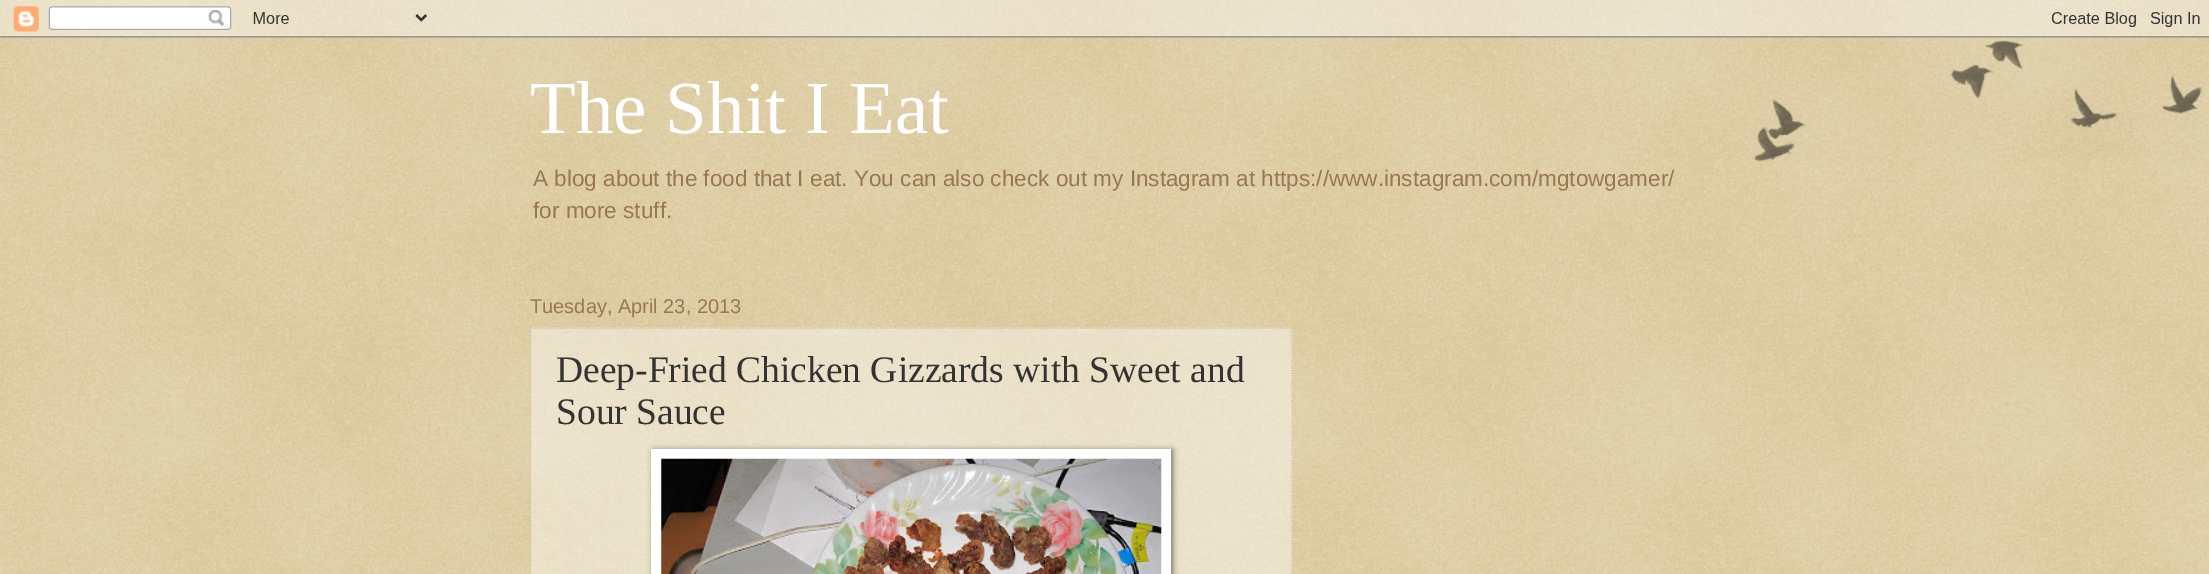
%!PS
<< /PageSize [2209 574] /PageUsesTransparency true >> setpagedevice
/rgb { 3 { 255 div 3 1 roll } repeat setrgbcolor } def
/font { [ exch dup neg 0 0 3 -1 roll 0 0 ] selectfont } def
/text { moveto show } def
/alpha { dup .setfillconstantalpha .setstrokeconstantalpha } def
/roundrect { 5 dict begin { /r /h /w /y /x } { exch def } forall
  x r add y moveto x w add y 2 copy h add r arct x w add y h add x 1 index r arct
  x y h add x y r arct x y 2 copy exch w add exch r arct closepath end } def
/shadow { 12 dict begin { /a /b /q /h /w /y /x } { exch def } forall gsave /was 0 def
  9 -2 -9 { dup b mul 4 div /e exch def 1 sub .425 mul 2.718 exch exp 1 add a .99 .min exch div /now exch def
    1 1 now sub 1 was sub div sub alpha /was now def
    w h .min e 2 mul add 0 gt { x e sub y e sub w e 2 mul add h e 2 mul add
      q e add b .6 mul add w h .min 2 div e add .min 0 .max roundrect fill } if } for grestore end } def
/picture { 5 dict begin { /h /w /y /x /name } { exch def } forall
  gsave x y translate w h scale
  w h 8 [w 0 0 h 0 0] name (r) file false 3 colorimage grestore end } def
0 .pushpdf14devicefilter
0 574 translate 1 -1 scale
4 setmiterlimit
192 161 84 rgb
0 0 2209 574 rectfill
(img_01.rgb) 0 0 2209 574 picture
(img_02.rgb) 0 0 2209 38 picture
0.4 alpha
255 255 255 rgb
530 327 763 247 rectfill
1 alpha
204 187 153 rgb
1.2 setlinewidth
[1.25 1.25] 0 setdash
530 328 moveto 762.5 0 rlineto stroke
1292 327.5 moveto 0 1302.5 rlineto stroke
530.5 327.5 moveto 0 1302.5 rlineto stroke
0 0 0 rgb
653 450 520 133 0 3 0.5 shadow
255 255 255 rgb
651 449 520 125 rectfill
(img_03.rgb) 661 458 501 116 picture
(img_04.rgb) 1754 40 449 122 picture
/LiberationSerif-Regular 75 font
(The Shit I Eat) 530 133 text
/LiberationSans-Regular 22.55 font
153 119 85 rgb
(A blog about the food that I eat. You can also check out my Instagram at https://www.instagram.com/mgtowgamer/) 533 186 text
(for more stuff.) 533 218 text
/LiberationSans-Regular 20 font
(Tuesday, April 23, 2013) 530 313 text
/LiberationSerif-Regular 37.5 font
51 51 51 rgb
(Deep-Fried Chicken Gizzards with Sweet and) 556 382 text
(Sour Sauce) 556 424 text
.poppdf14devicefilter showpage
